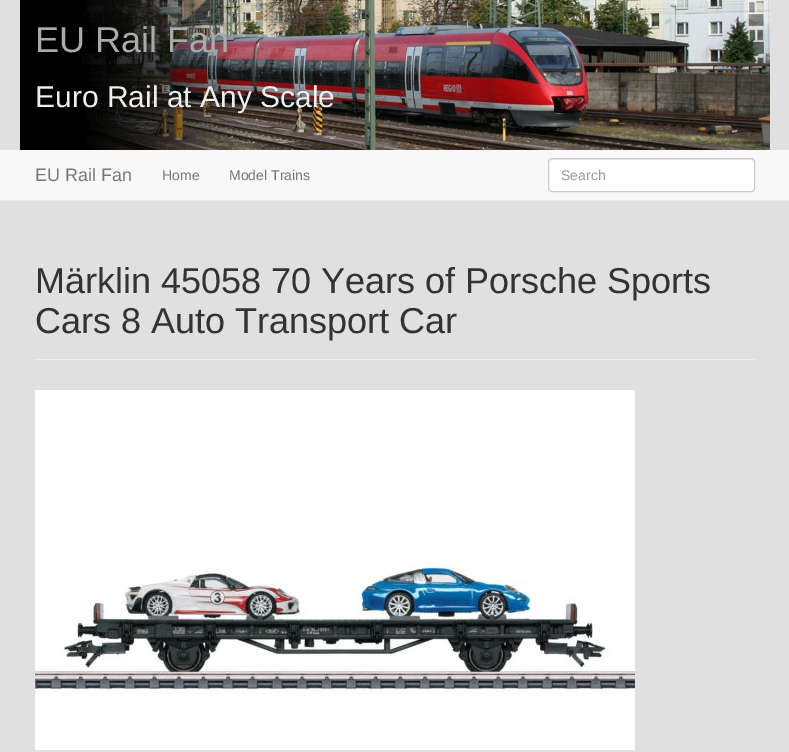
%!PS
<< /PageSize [789 752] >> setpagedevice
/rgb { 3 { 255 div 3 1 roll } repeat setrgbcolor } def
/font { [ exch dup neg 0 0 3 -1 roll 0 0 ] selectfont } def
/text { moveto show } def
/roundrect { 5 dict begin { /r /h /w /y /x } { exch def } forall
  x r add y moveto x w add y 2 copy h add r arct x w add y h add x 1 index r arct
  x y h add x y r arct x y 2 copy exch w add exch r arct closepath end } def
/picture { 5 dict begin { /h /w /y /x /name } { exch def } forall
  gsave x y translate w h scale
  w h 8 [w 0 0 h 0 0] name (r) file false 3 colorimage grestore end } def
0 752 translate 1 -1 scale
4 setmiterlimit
224 224 224 rgb
0 0 789 752 rectfill
(img_01.rgb) 20 0 750 150 picture
248 248 248 rgb
0 150 789 50 rectfill
231 231 231 rgb
0 200 789 1 rectfill
255 255 255 rgb
548 158 207 34 4 roundrect fill
236 236 236 rgb
552 160 moveto 199 0 rlineto 2 0 3 1 3 3 rcurveto 0 -2 -1 -4 -3 -4 rcurveto -199 0 rlineto -2 0 -3 2 -3 4 rcurveto 0 -2 1 -3 3 -3 rcurveto closepath fill
204 204 204 rgb
548.5 158.5 206 33 3.5 roundrect stroke
238 238 238 rgb
35 359 720 1 rectfill
(img_02.rgb) 35 390 600 360 picture
/LiberationSans-Regular 36 font
170 170 170 rgb
(EU Rail Fan) 35 52 text
/LiberationSans-Regular 30 font
238 238 238 rgb
(Euro Rail at Any Scale) 35 107 text
/LiberationSans-Regular 18 font
119 119 119 rgb
(EU Rail Fan) 35 181 text
/LiberationSans-Regular 14 font
(Home) 162 180 text
(Model Trains) 229 180 text
153 153 153 rgb
(Search) 561 180 text
/LiberationSans-Regular 36 font
51 51 51 rgb
(Märklin 45058 70 Years of Porsche Sports) 35 293 text
(Cars 8 Auto Transport Car) 35 333 text
showpage
